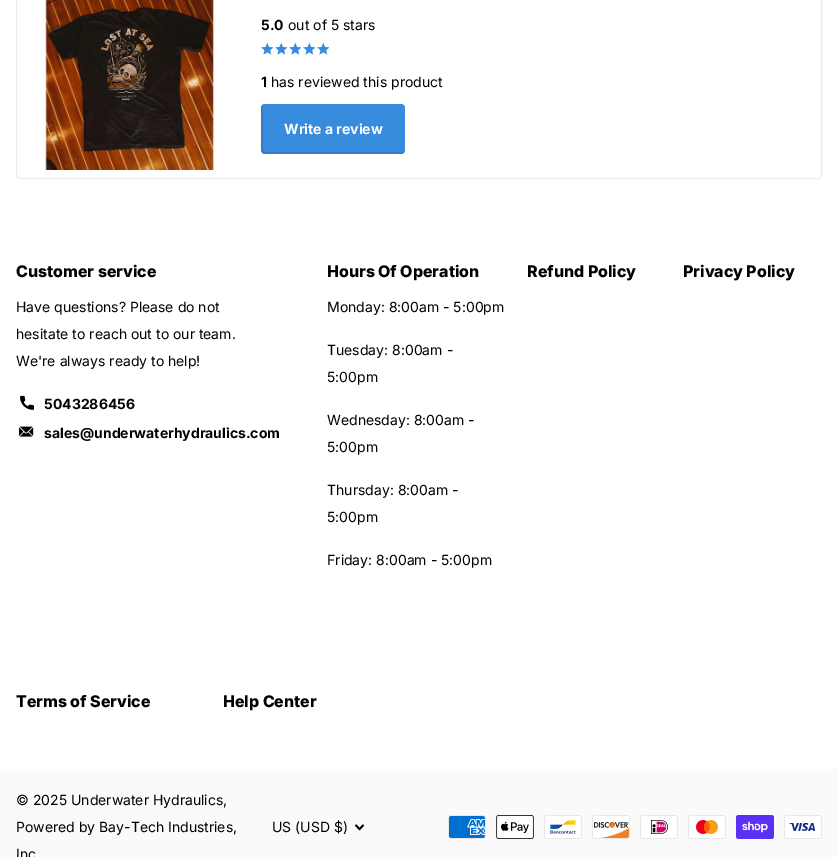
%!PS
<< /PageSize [838 857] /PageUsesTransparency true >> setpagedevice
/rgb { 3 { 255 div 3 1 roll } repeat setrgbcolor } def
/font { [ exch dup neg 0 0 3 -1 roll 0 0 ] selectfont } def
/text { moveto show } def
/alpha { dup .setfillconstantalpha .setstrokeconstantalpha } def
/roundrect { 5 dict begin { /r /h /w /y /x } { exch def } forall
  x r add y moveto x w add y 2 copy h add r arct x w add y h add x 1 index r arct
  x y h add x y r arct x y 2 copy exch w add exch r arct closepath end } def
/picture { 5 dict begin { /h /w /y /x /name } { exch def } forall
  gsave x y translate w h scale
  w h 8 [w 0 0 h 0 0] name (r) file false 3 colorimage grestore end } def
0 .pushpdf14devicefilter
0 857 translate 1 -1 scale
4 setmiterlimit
255 255 255 rgb
0 0 838 857 rectfill
237 237 237 rgb
16.5 -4.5 805 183 3.5 roundrect stroke
(img_01.rgb) 45 0 170 170 picture
(img_02.rgb) 261 42 12 13 picture
(img_03.rgb) 273 47 1 1 picture
(img_02.rgb) 275 42 12 13 picture
(img_03.rgb) 287 47 1 1 picture
(img_02.rgb) 289 42 12 13 picture
(img_03.rgb) 301 47 1 1 picture
(img_02.rgb) 303 42 12 13 picture
(img_03.rgb) 315 47 1 1 picture
(img_02.rgb) 317 42 12 13 picture
(img_03.rgb) 329 47 1 1 picture
55 140 222 rgb
261 104 144 50 4 roundrect fill
0.1 alpha
0 0 0 rgb
263 104 moveto -1 1 -2 2 -2 4 rcurveto 0 42 rlineto 0 2 2 4 4 4 rcurveto 136 0 rlineto 2 0 3 -1 4 -2 rcurveto -2 0 rlineto -136 0 rlineto -2 0 -4 -2 -4 -4 rcurveto 0 -42 rlineto closepath fill
1 alpha
(img_04.rgb) 20 395 14 15 picture
(img_05.rgb) 19 426 15 11 picture
250 250 250 rgb
0 769 838 88 rectfill
(img_06.rgb) 355 824 9 7 picture
(img_07.rgb) 448 815 38 24 picture
(img_08.rgb) 496 815 38 24 picture
(img_09.rgb) 544 815 38 24 picture
(img_10.rgb) 592 815 38 24 picture
(img_11.rgb) 640 815 38 24 picture
(img_12.rgb) 688 815 38 24 picture
(img_13.rgb) 736 815 38 24 picture
(img_14.rgb) 784 815 38 24 picture
/Inter-Bold 14 font
0 0 0 rgb
(5.0) 261 30 text
/Inter-Regular 14 font
(out of 5 stars) 288 30 text
/Inter-Bold 14 font
(1) 261 87 text
/Inter-Regular 14 font
(has reviewed this product) 271 87 text
/Inter-Bold 14 font
255 255 255 rgb
(Write a review) 284 134 text
/Inter-ExtraBold 16 font
0 0 0 rgb
(Customer service) 16 277 text
/Inter-Regular 14 font
(Have questions? Please do not) 16 312 text
(hesitate to reach out to our team.) 16 339 text
(We're always ready to help!) 16 366 text
/Inter-Bold 14 font
(5043286456) 44 409 text
(sales@underwaterhydraulics.com) 44 438 text
/Inter-ExtraBold 16 font
(Hours Of Operation) 327 277 text
/Inter-Regular 14 font
(Monday: 8:00am - 5:00pm) 327 312 text
(Tuesday: 8:00am -) 327 355 text
(5:00pm) 327 382 text
(Wednesday: 8:00am -) 327 425 text
(5:00pm) 327 452 text
(Thursday: 8:00am -) 327 495 text
(5:00pm) 327 522 text
(Friday: 8:00am - 5:00pm) 327 565 text
/Inter-ExtraBold 16 font
(Refund Policy) 527 277 text
(Privacy Policy) 683 277 text
(Terms of Service) 16 707 text
(Help Center) 223 707 text
/Inter-Regular 14 font
(© 2025 Underwater Hydraulics,) 16 805 text
(Powered by Bay-Tech Industries,) 16 832 text
(Inc) 16 859 text
(US \(USD $\)) 272 832 text
.poppdf14devicefilter showpage
